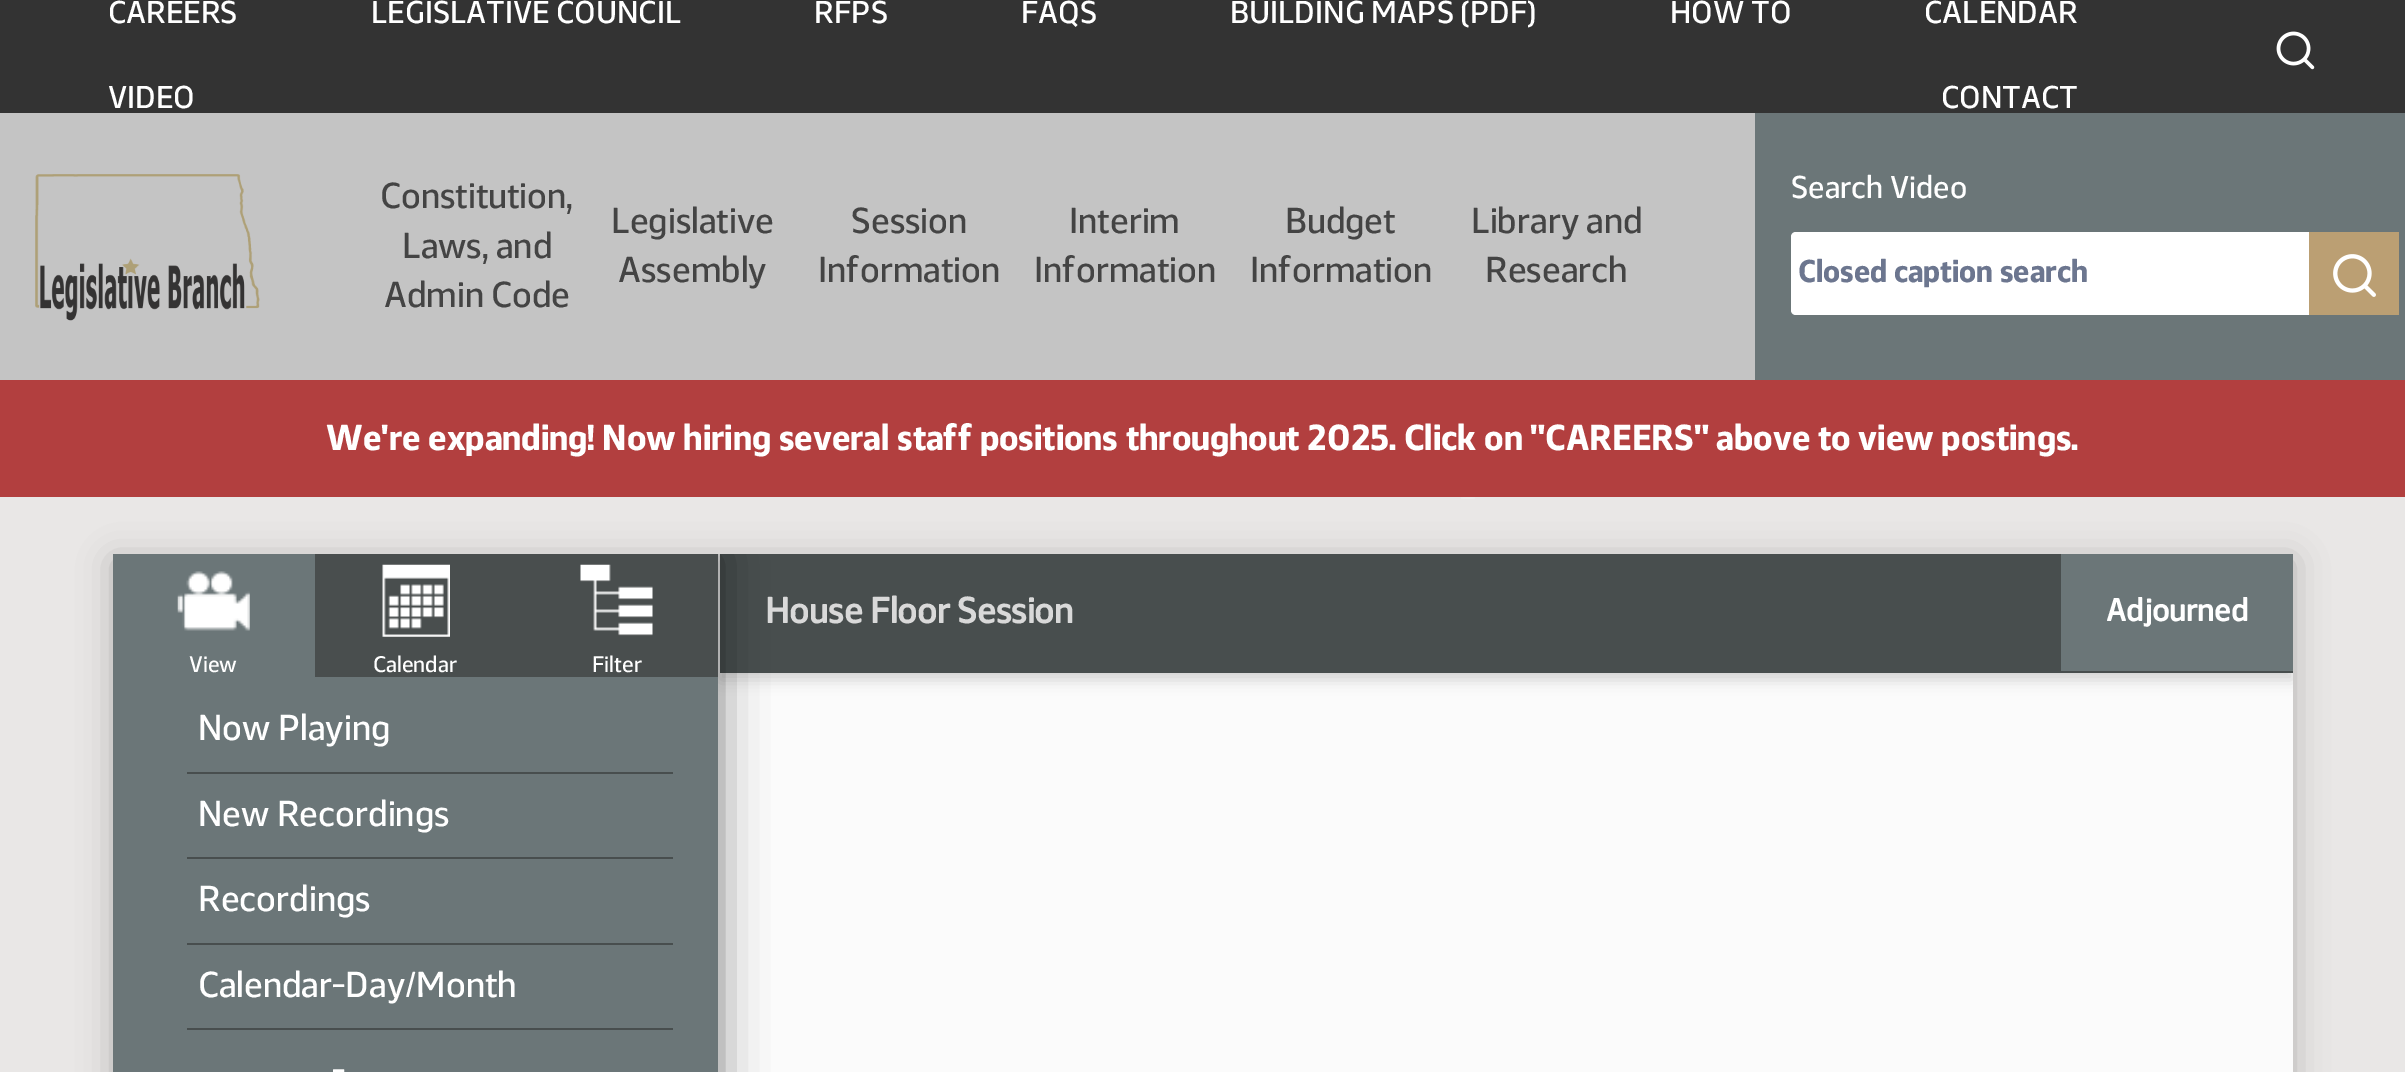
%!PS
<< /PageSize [2405 1072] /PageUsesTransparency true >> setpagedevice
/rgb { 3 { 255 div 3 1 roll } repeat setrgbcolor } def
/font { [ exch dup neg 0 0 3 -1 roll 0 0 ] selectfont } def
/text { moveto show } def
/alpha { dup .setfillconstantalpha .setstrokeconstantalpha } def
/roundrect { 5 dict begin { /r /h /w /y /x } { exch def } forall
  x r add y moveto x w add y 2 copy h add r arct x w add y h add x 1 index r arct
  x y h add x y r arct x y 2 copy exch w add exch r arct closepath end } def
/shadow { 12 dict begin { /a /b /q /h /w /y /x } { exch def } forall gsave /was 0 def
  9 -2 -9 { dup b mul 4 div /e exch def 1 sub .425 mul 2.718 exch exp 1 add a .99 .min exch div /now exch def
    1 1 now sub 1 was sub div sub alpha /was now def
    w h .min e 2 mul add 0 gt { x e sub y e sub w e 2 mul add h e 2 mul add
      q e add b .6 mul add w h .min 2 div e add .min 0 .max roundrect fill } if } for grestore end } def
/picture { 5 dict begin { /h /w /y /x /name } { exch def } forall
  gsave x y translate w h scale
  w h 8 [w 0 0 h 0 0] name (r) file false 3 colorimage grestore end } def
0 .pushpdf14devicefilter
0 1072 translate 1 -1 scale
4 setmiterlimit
233 231 230 rgb
0 0 2405 1072 rectfill
51 51 51 rgb
0 0 2405 113 rectfill
(img_01.rgb) 2276 31 39 39 picture
196 196 196 rgb
0 113 1755 267 rectfill
(img_02.rgb) 35 174 225 147 picture
107 118 120 rgb
1755 113 650 267 rectfill
255 255 255 rgb
1796 232 moveto 513 0 rlineto 0 83 rlineto -513 0 rlineto -3 0 -5 -2 -5 -5 rcurveto 0 -73 rlineto 0 -3 2 -5 5 -5 rcurveto closepath fill
187 159 115 rgb
2309 232 90 83 rectfill
(img_03.rgb) 2333 254 43 43 picture
178 63 63 rgb
0 380 2405 117 rectfill
(img_04.rgb) 1461 497 14 2 picture
0 0 0 rgb
113 560 2180 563 0 17 0.24 shadow
251 251 251 rgb
718 554 1575 518 rectfill
gsave
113 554 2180 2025 rectclip
0 0 0 rgb
720 560 1573 120 0 7 0.16 shadow
grestore
72 78 78 rgb
720 554 1573 119 rectfill
107 118 120 rgb
2061 554 232 117 rectfill
gsave
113 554 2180 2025 rectclip
6 6 6 rgb
115 554 605 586 0 22.5 0.48 shadow
grestore
113 554 605 518 rectfill
(img_05.rgb) 177 571 73 60 picture
73 78 78 rgb
315 554 403 123 rectfill
(img_06.rgb) 382 564 68 73 picture
(img_07.rgb) 580 564 73 72 picture
72 78 78 rgb
187 772 486 2 rectfill
187 857 486 2 rectfill
187 943 486 2 rectfill
187 1028 486 2 rectfill
/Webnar-Medium 31.5 font
255 255 255 rgb
(CAREERS) 108 23 text
(LEGISLATIVE COUNCIL) 371 23 text
(RFPS) 814 23 text
(FAQS) 1021 23 text
(BUILDING MAPS \(PDF\)) 1230 23 text
(HOW TO) 1670 23 text
(CALENDAR) 1924 23 text
(VIDEO) 108 108 text
(CONTACT) 1941 108 text
/Webnar-Medium 36 font
68 68 68 rgb
(Constitution,) 380 208 text
(Laws, and) 402 258 text
(Admin Code) 384 307 text
(Legislative) 611 233 text
(Assembly) 618 282 text
(Session) 851 233 text
(Information) 818 282 text
(Interim) 1069 233 text
(Information) 1034 282 text
(Budget) 1285 233 text
(Information) 1250 282 text
(Library and) 1471 233 text
(Research) 1485 282 text
/Webnar-Medium 31.5 font
255 255 255 rgb
(Search Video) 1791 198 text
/Webnar-Bold 31.5 font
108 118 143 rgb
(Closed caption search) 1798 282 text
/Webnar-Bold 36 font
255 255 255 rgb
(We're expanding! Now hiring several staff positions throughout 2025. Click on "CAREERS" above to view postings.) 326 450 text
/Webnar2-Bold 36 font
217 217 217 rgb
(House Floor Session) 765 623 text
/Webnar2-Bold 31.5 font
255 255 255 rgb
(Adjourned) 2106 621 text
/Webnar-Medium 22.5 font
(View) 189 672 text
(Calendar) 373 672 text
(Filter) 592 672 text
/Webnar-Medium 36 font
(Now Playing) 198 740 text
(New Recordings) 198 826 text
(Recordings) 198 911 text
(Calendar-Day/Month) 198 997 text
(-) 332 1082 text
.poppdf14devicefilter showpage
